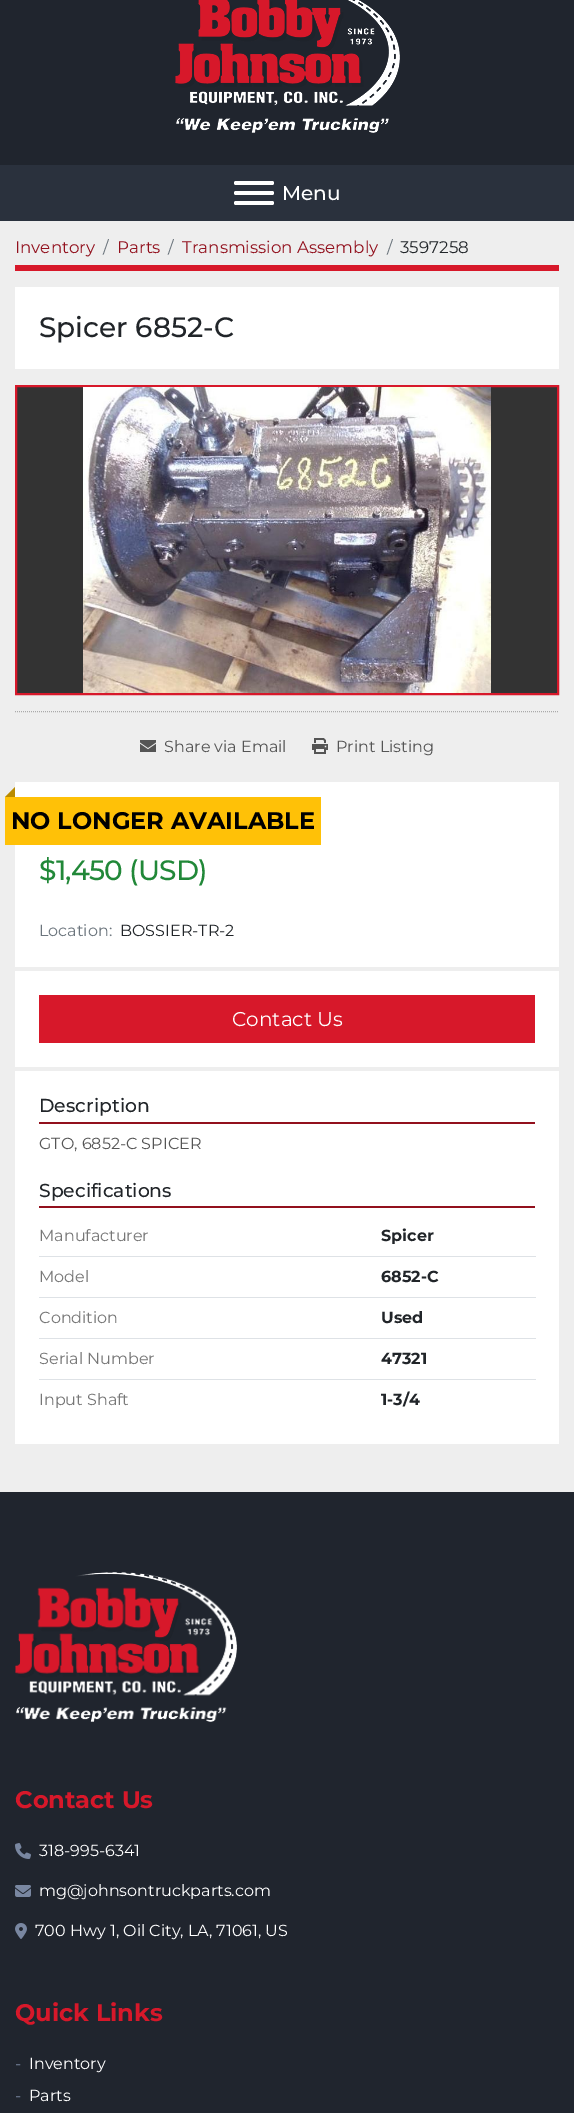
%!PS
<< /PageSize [574 2113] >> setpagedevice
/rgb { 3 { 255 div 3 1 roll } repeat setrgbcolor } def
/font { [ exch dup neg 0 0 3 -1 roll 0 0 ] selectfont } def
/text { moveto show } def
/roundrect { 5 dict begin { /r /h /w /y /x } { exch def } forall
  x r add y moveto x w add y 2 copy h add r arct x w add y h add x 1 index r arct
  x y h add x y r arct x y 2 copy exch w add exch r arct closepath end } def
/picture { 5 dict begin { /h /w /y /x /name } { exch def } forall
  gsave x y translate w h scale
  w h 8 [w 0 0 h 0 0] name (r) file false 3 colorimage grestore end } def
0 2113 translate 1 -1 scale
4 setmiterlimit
238 238 238 rgb
0 0 574 2113 rectfill
32 37 46 rgb
0 0 574 165 rectfill
(img_01.rgb) 175 0 225 133 picture
42 49 61 rgb
0 165 574 56 rectfill
255 255 255 rgb
234 191 40 4 2 roundrect fill
234 181 40 4 2 roundrect fill
234 201 40 4 2 roundrect fill
215 24 42 rgb
15 265 544 6 rectfill
255 255 255 rgb
15 287 544 82 rectfill
51 51 51 rgb
16 386 moveto 542 0 rlineto 0 308 rlineto -542 0 rlineto closepath gsave fill grestore
215 24 42 rgb
2 setlinewidth
stroke
(img_02.rgb) 83 387 408 306 picture
170 170 170 rgb
1 setlinewidth
[1 1] 0 setdash
15 711.5 moveto 544 0 rlineto stroke
(img_03.rgb) 140 740 16 12 picture
(img_04.rgb) 312 738 16 16 picture
255 255 255 rgb
15 782 544 662 rectfill
255 193 7 rgb
5 797 316 48 rectfill
186 139 0 rgb
15 797 moveto -10 0 rlineto 10 -10 rlineto closepath fill
238 238 238 rgb
15 967 544 4 rectfill
15 1067 544 4 rectfill
215 24 42 rgb
39 995 496 48 rectfill
146 16 29 rgb
39 1122 496 2 rectfill
39 1206 496 2 rectfill
222 226 230 rgb
39 1256 497 1 rectfill
39 1297 497 1 rectfill
39 1338 497 1 rectfill
39 1379 497 1 rectfill
32 37 46 rgb
0 1492 574 621 rectfill
(img_05.rgb) 15 1572 222 150 picture
(img_06.rgb) 15 1843 16 16 picture
(img_07.rgb) 15 1885 16 12 picture
(img_08.rgb) 15 1923 12 16 picture
/Montserrat-Thin 20 font
255 255 255 rgb
(Menu) 282 200 text
/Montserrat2-Thin 16.75 font
146 16 29 rgb
(Inventory) 15 253 text
108 117 125 rgb
(/) 103 253 text
146 16 29 rgb
(Parts) 117 253 text
108 117 125 rgb
(/) 168 253 text
146 16 29 rgb
(Transmission Assembly) 182 253 text
108 117 125 rgb
(/) 387 253 text
33 37 41 rgb
(3597258) 400 253 text
/Montserrat-Thin 28 font
(Spicer 6852-C) 39 337 text
/Montserrat2-Thin 16 font
85 85 85 rgb
(Share via Email) 164 752 text
(Print Listing) 336 752 text
/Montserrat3-Thin 24 font
0 0 0 rgb
(NO LONGER AVAILABLE) 11 829 text
/Montserrat-Thin 28 font
33 136 56 rgb
39 880 moveto -0.75 0 ($1,450 \(USD\)) ashow
/Montserrat2-Thin 16 font
108 117 125 rgb
(Location:) 39 936 text
33 37 41 rgb
(BOSSIER-TR-2) 120 936 text
/Montserrat2-Thin 20 font
255 255 255 rgb
(Contact Us) 232 1026 text
/Montserrat-Thin 18.75 font
33 37 41 rgb
(Description) 39 1112 text
/Montserrat2-Thin 16 font
85 85 85 rgb
(GTO, 6852-C SPICER) 39 1149 text
/Montserrat-Thin 18.75 font
33 37 41 rgb
(Specifications) 39 1197 text
/Montserrat2-Thin 16 font
119 119 119 rgb
(Manufacturer) 39 1241 text
/Montserrat3-Thin 16 font
33 37 41 rgb
(Spicer) 381 1241 text
/Montserrat2-Thin 16 font
119 119 119 rgb
(Model) 39 1282 text
/Montserrat3-Thin 16 font
33 37 41 rgb
(6852-C) 381 1282 text
/Montserrat2-Thin 16 font
119 119 119 rgb
(Condition) 39 1323 text
/Montserrat3-Thin 16 font
33 37 41 rgb
(Used) 381 1323 text
/Montserrat2-Thin 16 font
119 119 119 rgb
(Serial Number) 39 1364 text
/Montserrat3-Thin 16 font
33 37 41 rgb
(47321) 381 1364 text
/Montserrat2-Thin 16 font
119 119 119 rgb
(Input Shaft) 39 1405 text
/Montserrat3-Thin 16 font
33 37 41 rgb
(1-3/4) 381 1405 text
/Montserrat3-Thin 24 font
215 24 42 rgb
(Contact Us) 15 1808 text
/Montserrat2-Thin 16 font
255 255 255 rgb
(318-995-6341) 39 1856 text
(mg@johnsontruckparts.com) 39 1896 text
(700 Hwy 1, Oil City, LA, 71061, US) 35 1936 text
/Montserrat3-Thin 24 font
215 24 42 rgb
(Quick Links) 15 2021 text
/Montserrat2-Thin 16 font
121 135 161 rgb
(-) 15 2069 text
255 255 255 rgb
(Inventory) 29 2069 text
121 135 161 rgb
(-) 15 2101 text
255 255 255 rgb
(Parts) 29 2101 text
showpage
